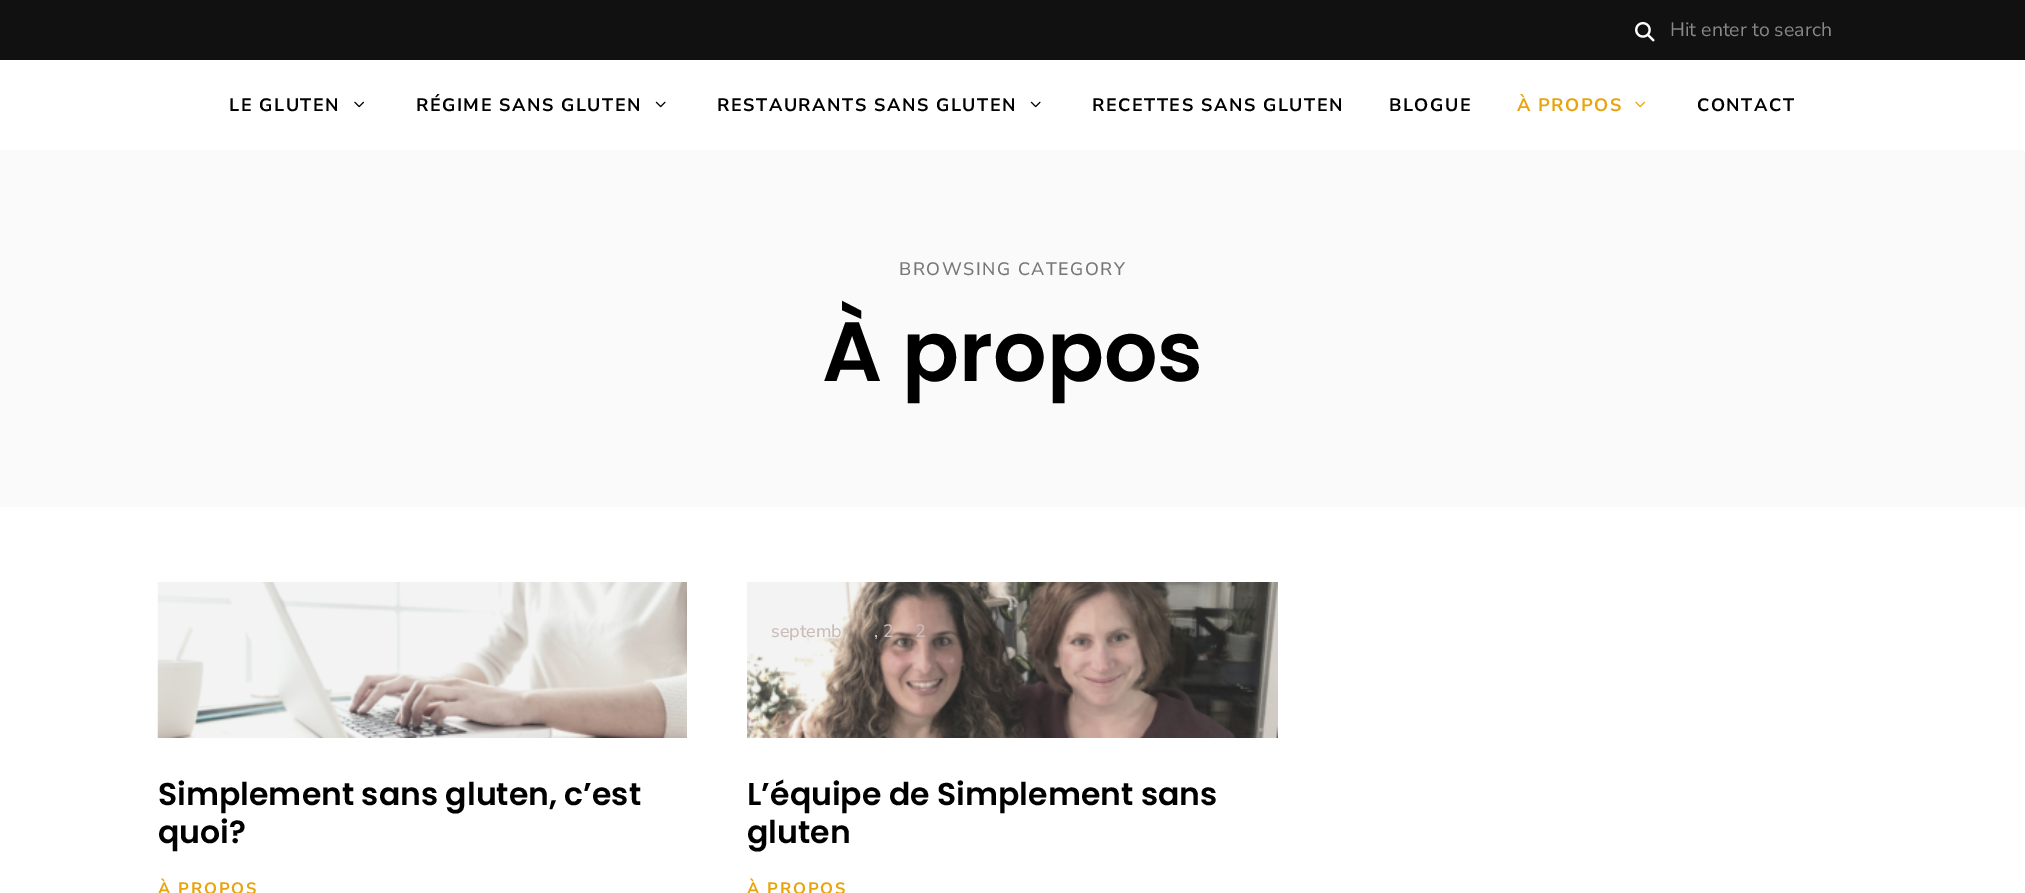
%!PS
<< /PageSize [2025 893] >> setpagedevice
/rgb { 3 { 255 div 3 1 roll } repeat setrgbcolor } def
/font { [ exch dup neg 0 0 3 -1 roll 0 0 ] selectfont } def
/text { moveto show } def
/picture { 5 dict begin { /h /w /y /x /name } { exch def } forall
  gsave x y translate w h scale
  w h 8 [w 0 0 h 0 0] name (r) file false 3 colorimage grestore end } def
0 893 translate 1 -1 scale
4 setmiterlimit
255 255 255 rgb
0 0 2025 893 rectfill
17 17 17 rgb
0 0 2025 60 rectfill
(img_01.rgb) 1635 21 20 21 picture
(img_02.rgb) 354 101 10 7 picture
(img_03.rgb) 655 101 11 7 picture
(img_03.rgb) 1030 101 11 7 picture
(img_04.rgb) 1635 101 10 7 picture
250 250 250 rgb
0 150 2025 357 rectfill
(img_05.rgb) 157 582 530 156 picture
(img_06.rgb) 747 582 531 156 picture
/NunitoSans-Regular 19.5 font
136 136 136 rgb
(Hit enter to search) 1670 36 text
/NunitoSans-Bold 18 font
0 0 0 rgb
229 111 moveto 1.5 0 (LE GLUTEN) ashow
416 111 moveto 1.5 0 (RÉGIME SANS GLUTEN) ashow
717 111 moveto 1.5 0 (RESTAURANTS SANS GLUTEN) ashow
1092 111 moveto 1.5 0 (RECETTES SANS GLUTEN) ashow
1389 111 moveto 1.5 0 (BLOGUE) ashow
232 164 13 rgb
1517 111 moveto 1.5 0 (À PROPOS) ashow
0 0 0 rgb
1697 111 moveto 1.5 0 (CONTACT) ashow
/NunitoSans-Medium 18 font
118 118 118 rgb
899 275 moveto 1.5 0 (BROWSING CATEGORY) ashow
/Poppins-SemiBold 84 font
0 0 0 rgb
(À propos) 822 381 text
/Poppins-SemiBold 31.5 font
(Simplement sans gluten, c’est) 158 805 text
(quoi?) 158 843 text
/NunitoSans-Bold 16.5 font
232 164 13 rgb
158 894 moveto 1.75 0 (À PROPOS) ashow
/NunitoSans-Medium 18 font
202 189 183 rgb
(septemb) 771 637 text
(, 2) 874 637 text
(2) 915 637 text
/Poppins-SemiBold 31.5 font
0 0 0 rgb
(L’équipe de Simplement sans) 747 805 text
(gluten) 747 843 text
/NunitoSans-Bold 16.5 font
232 164 13 rgb
747 894 moveto 1.75 0 (À PROPOS) ashow
showpage
